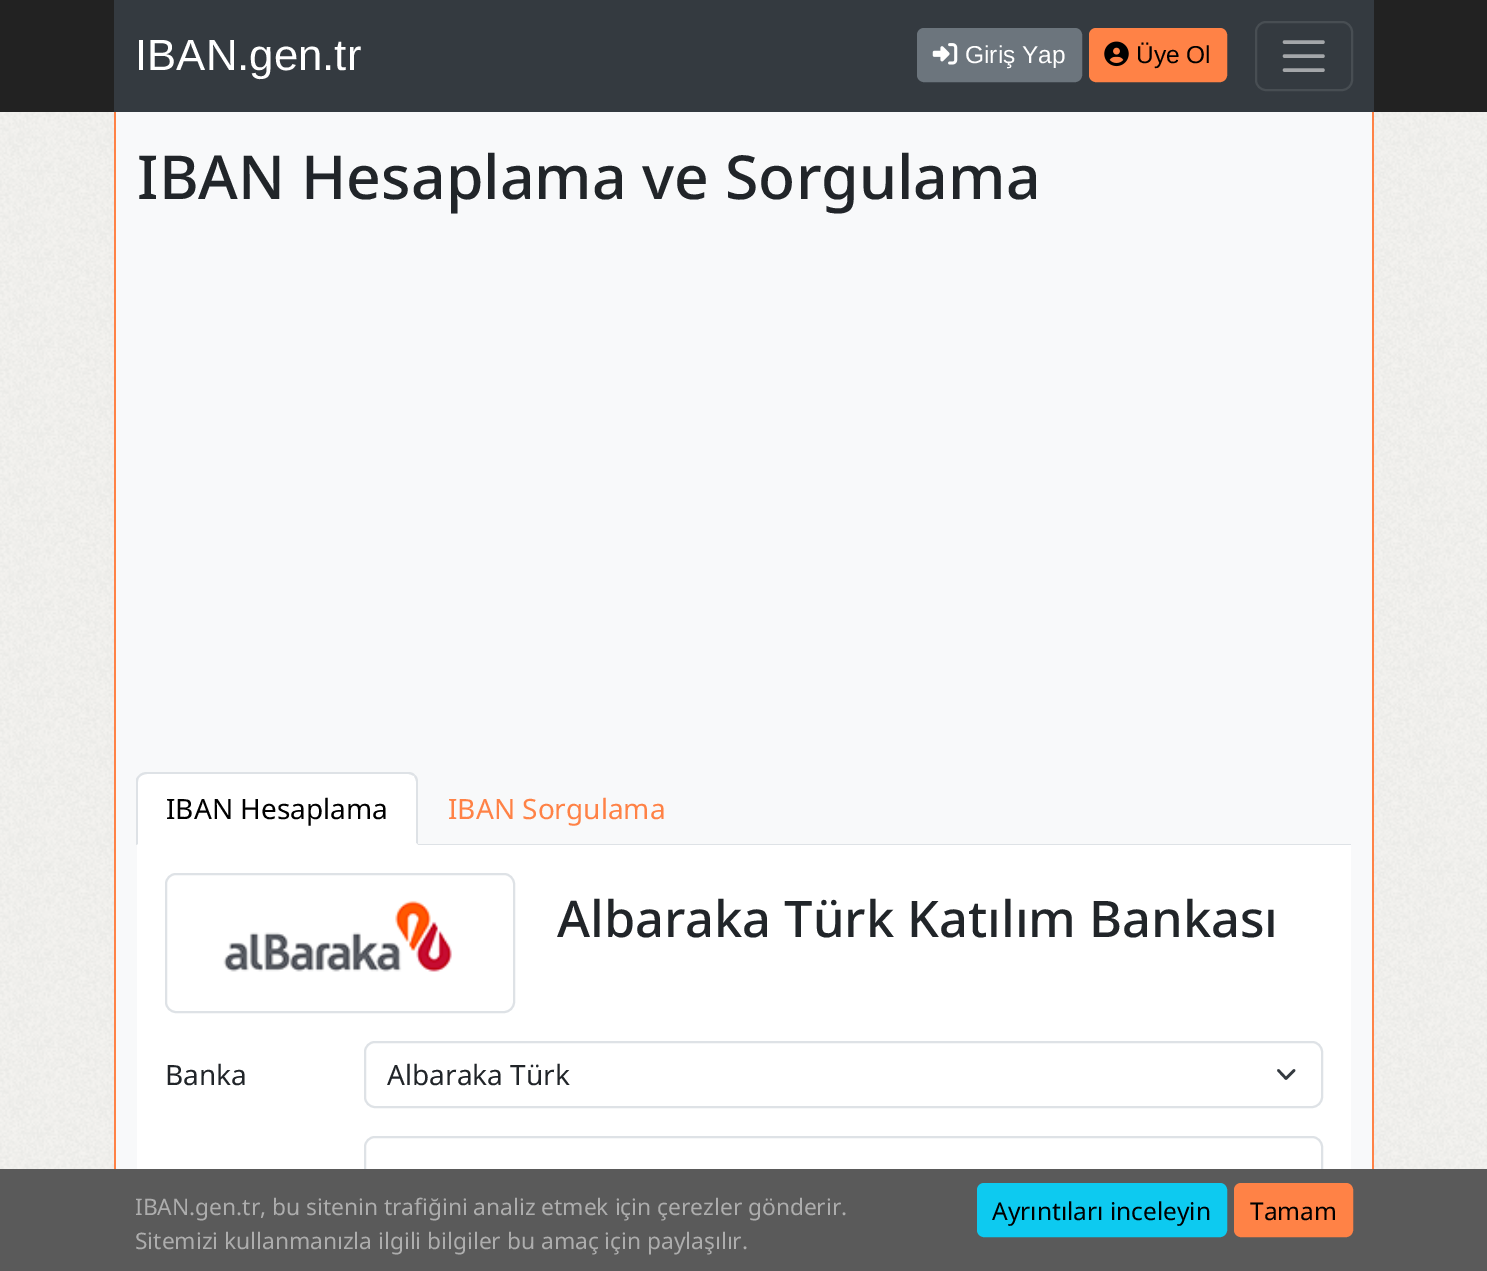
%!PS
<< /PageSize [1487 1271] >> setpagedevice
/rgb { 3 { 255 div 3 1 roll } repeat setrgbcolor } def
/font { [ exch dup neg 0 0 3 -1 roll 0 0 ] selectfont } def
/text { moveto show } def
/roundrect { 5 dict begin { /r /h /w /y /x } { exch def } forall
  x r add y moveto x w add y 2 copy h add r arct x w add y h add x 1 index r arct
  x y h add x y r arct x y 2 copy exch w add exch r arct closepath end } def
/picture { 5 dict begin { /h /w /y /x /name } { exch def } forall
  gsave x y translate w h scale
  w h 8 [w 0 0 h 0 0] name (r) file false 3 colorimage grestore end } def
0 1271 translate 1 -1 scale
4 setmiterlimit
255 255 255 rgb
0 0 1487 1271 rectfill
(img_01.rgb) 0 112 1487 1057 picture
34 34 34 rgb
0 0 1487 112 rectfill
52 58 64 rgb
114 0 1260 112 rectfill
108 117 125 rgb
918 29 163 52 6 roundrect gsave fill grestore
2 setlinewidth
stroke
(img_02.rgb) 932 43 26 22 picture
255 130 70 rgb
1090 29 136 52 6 roundrect gsave fill grestore
stroke
(img_03.rgb) 1104 41 25 26 picture
72 78 83 rgb
1256 22 96 68 10 roundrect stroke
164 166 169 rgb
3.5 setlinewidth
1 setlinecap
1284.5 42 moveto 38.5 0 rlineto 1284.5 56 moveto 38.5 0 rlineto 1284.5 70 moveto 38.5 0 rlineto stroke
248 249 250 rgb
116 112 1256 1057 rectfill
255 130 70 rgb
1372 112 2 1057 rectfill
114 112 2 1057 rectfill
222 226 230 rgb
418 844 933 1 rectfill
255 255 255 rgb
148 772 moveto 259 0 rlineto 6 0 11 5 11 11 rcurveto 0 62 rlineto -281 0 rlineto 0 -62 rlineto 0 -6 5 -11 11 -11 rcurveto closepath fill
222 226 230 rgb
147 772 moveto -3 0 -6 1 -8 3 rcurveto 2 1 rlineto 1 -1 4 -2 6 -2 rcurveto 261 0 rlineto 2 0 4 1 6 2 rcurveto 1 -1 rlineto -1 -2 -4 -3 -7 -3 rcurveto closepath fill
418 845 moveto 0 -63 rlineto 0 -3 -1 -6 -3 -7 rcurveto -1 1 rlineto 1 2 2 4 2 6 rcurveto 0 61 rlineto closepath fill
255 255 255 rgb
418 845 moveto -2 -2 rlineto 0 1 rlineto -278 0 rlineto -1 1 rlineto closepath fill
222 226 230 rgb
136 779 moveto 1 -2 2 -3 3 -4 rcurveto 2 1 rlineto -2 1 -3 3 -3 6 rcurveto 0 62 rlineto -2 1 rlineto closepath fill
255 255 255 rgb
137 845 1214 324 rectfill
222 226 230 rgb
2 setlinewidth
0 setlinecap
166 874 348 138 10 roundrect stroke
(img_04.rgb) 223 900 229 72 picture
52 58 64 rgb
2.6 setlinewidth
1 setlinecap
1 setlinejoin
1278.5 1070.5 moveto 7.5 8 rlineto 8 -8 rlineto stroke
222 226 230 rgb
2 setlinewidth
0 setlinecap
0 setlinejoin
365 1042 957 65 10 roundrect stroke
365 1137 957 64 10 roundrect stroke
90 90 90 rgb
0 1169 1487 102 rectfill
13 202 240 rgb
978 1184 248 52 6 roundrect gsave fill grestore
stroke
255 130 70 rgb
1235 1184 117 52 6 roundrect gsave fill grestore
stroke
/LiberationSans-Regular 43.75 font
255 255 255 rgb
(IBAN.gen.tr) 135 70 text
/LiberationSans-Regular 24.5 font
(Giriş Yap) 965 63 text
0 0 0 rgb
(Üye Ol) 1136 63 text
/NotoSans-Medium 60.75 font
33 37 41 rgb
(IBAN Hesaplama ve Sorgulama) 137 199 text
/NotoSans-Regular 28 font
0 0 0 rgb
(IBAN Hesaplama) 166 819 text
255 130 70 rgb
(IBAN Sorgulama) 448 819 text
/NotoSans-Medium 50.5 font
33 37 41 rgb
(Albaraka Türk Katılım Bankası) 557 937 text
/NotoSans-Regular 28 font
(Banka) 165 1085 text
(Albaraka Türk) 387 1085 text
/NotoSans-Regular 22.75 font
173 173 173 rgb
(IBAN.gen.tr, bu sitenin trafiğini analiz etmek için çerezler gönderir.) 135 1215 text
(Sitemizi kullanmanızla ilgili bilgiler bu amaç için paylaşılır.) 135 1249 text
/NotoSans-Regular 24.5 font
0 0 0 rgb
(Ayrıntıları inceleyin) 992 1220 text
(Tamam) 1250 1220 text
showpage
